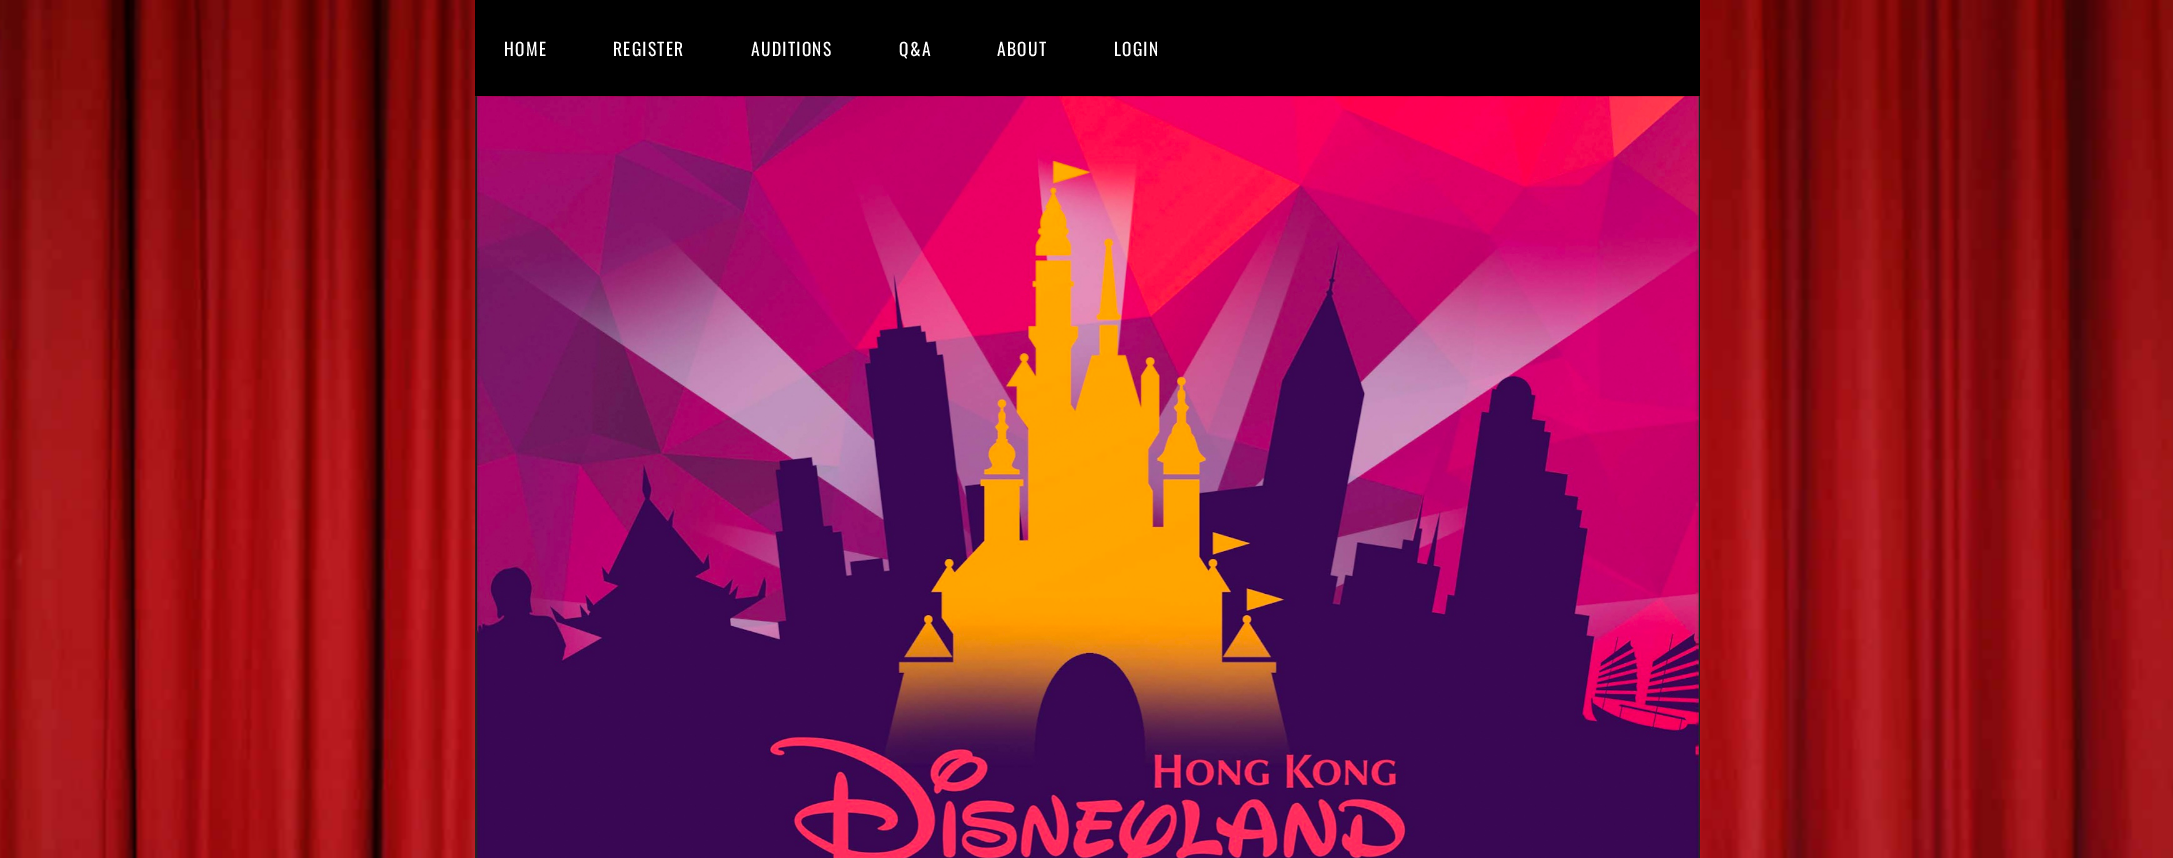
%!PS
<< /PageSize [2173 858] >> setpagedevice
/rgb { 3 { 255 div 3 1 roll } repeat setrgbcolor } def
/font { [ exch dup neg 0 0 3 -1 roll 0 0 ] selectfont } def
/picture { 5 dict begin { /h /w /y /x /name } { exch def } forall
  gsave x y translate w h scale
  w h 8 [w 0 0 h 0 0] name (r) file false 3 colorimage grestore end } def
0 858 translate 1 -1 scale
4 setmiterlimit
255 255 255 rgb
0 0 2173 858 rectfill
(img_01.rgb) 0 0 2173 858 picture
0 0 0 rgb
475 0 1225 96 rectfill
(img_02.rgb) 475 96 1225 762 picture
/Oswald-Regular 17.5 font
255 255 255 rgb
504 56 moveto 1.25 0 (HOME) ashow
613 56 moveto 1.25 0 (REGISTER) ashow
751 56 moveto 1.25 0 (AUDITIONS) ashow
899 56 moveto 1.25 0 (Q&A) ashow
997 56 moveto 1.25 0 (ABOUT) ashow
1114 56 moveto 1.25 0 (LOGIN) ashow
showpage
